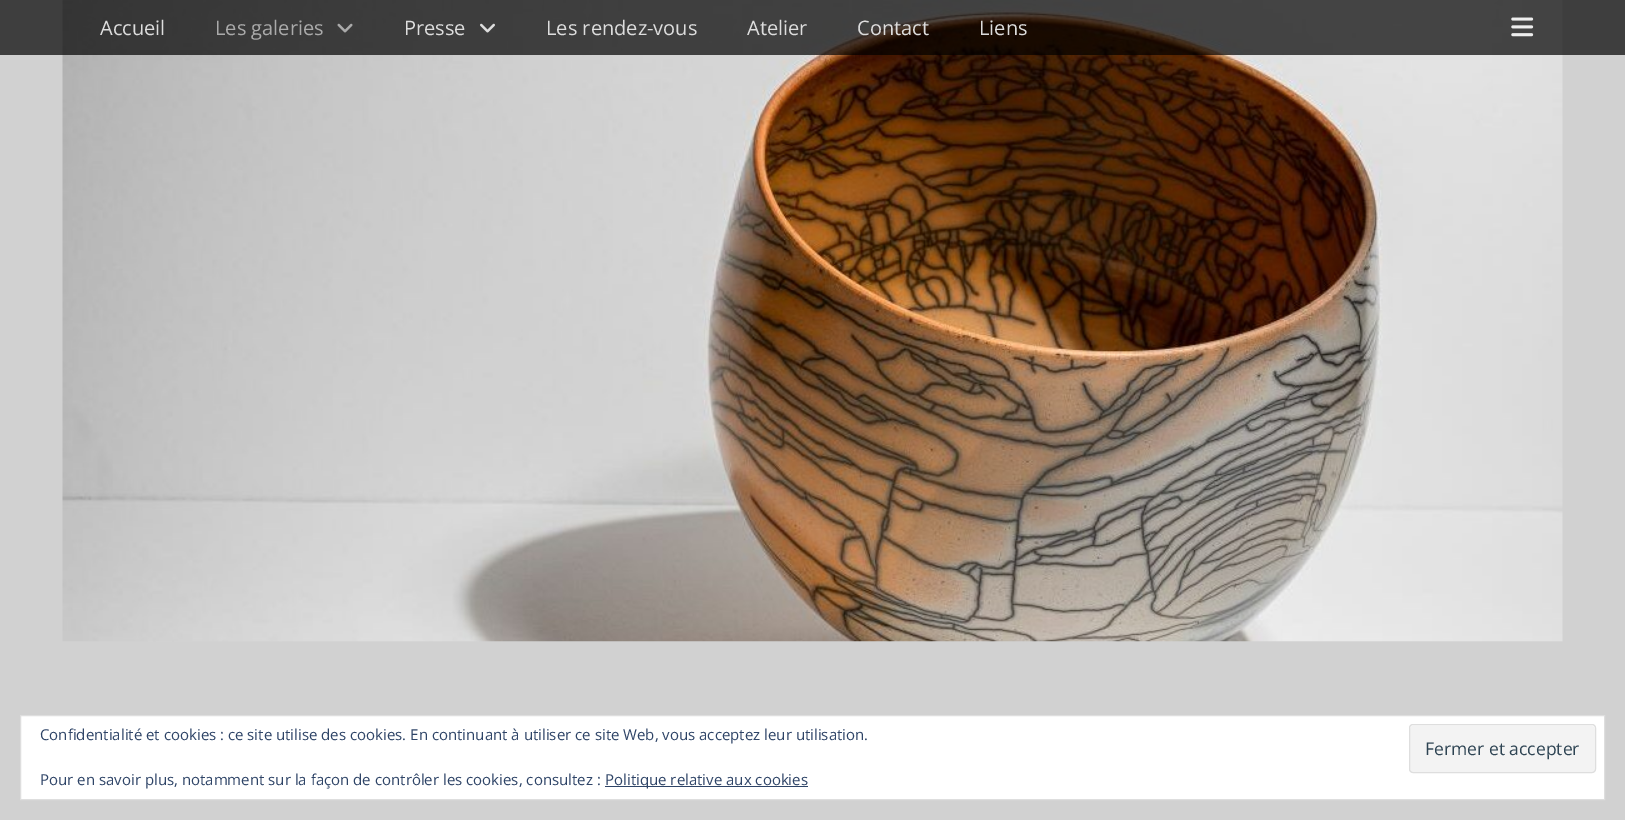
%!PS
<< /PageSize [1625 820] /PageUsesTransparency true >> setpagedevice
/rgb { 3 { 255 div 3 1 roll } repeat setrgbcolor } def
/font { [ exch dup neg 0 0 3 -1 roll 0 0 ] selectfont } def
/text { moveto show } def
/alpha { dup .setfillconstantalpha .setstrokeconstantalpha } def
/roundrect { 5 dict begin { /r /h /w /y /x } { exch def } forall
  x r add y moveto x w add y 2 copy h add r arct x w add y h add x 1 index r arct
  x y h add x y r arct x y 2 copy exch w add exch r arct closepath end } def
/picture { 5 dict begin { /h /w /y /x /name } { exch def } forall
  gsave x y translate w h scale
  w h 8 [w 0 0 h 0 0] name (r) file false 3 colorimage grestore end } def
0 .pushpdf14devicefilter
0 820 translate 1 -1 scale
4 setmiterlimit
209 209 209 rgb
0 0 1625 820 rectfill
(img_01.rgb) 62 0 1501 642 picture
0.7 alpha
0 0 0 rgb
0 0 1625 55 rectfill
1 alpha
(img_02.rgb) 337 23 16 10 picture
(img_03.rgb) 480 23 15 10 picture
(img_04.rgb) 1511 17 23 20 picture
255 255 255 rgb
20.5 715.5 moveto 1584 0 rlineto 0 84 rlineto -1584 0 rlineto closepath gsave fill grestore
222 222 222 rgb
stroke
243 243 243 rgb
1409 724 187 49 4 roundrect fill
249 249 249 rgb
1412 726 moveto 180 0 rlineto 2 1 rlineto 1 2 rlineto 0 -2 0 -4 -3 -4 rcurveto -180 0 rlineto -2 0 -2 2 -2 4 rcurveto 0 -2 1 -3 2 -3 rcurveto closepath fill
222 222 222 rgb
1409.5 724.5 186 48 3.5 roundrect stroke
46 68 103 rgb
605 786 203 1 rectfill
/OpenSans-Regular 20 font
221 221 221 rgb
(Accueil) 100 35 text
170 170 170 rgb
(Les galeries) 215 35 text
221 221 221 rgb
(Presse) 404 35 text
(Les rendez-vous) 546 35 text
(Atelier) 747 35 text
(Contact) 857 35 text
(Liens) 979 35 text
/OpenSans-Regular 15 font
46 68 103 rgb
(Confidentialité et cookies : ce site utilise des cookies. En continuant à utiliser ce site Web, vous acceptez leur utilisation.) 40 740 text
/OpenSans-Regular 17.5 font
46 68 83 rgb
(Fermer et accepter) 1425 755 text
/OpenSans-Regular 15 font
46 68 103 rgb
(Pour en savoir plus, notamment sur la façon de contrôler les cookies, consultez :) 40 785 text
(Politique relative aux cookies) 605 785 text
.poppdf14devicefilter showpage
